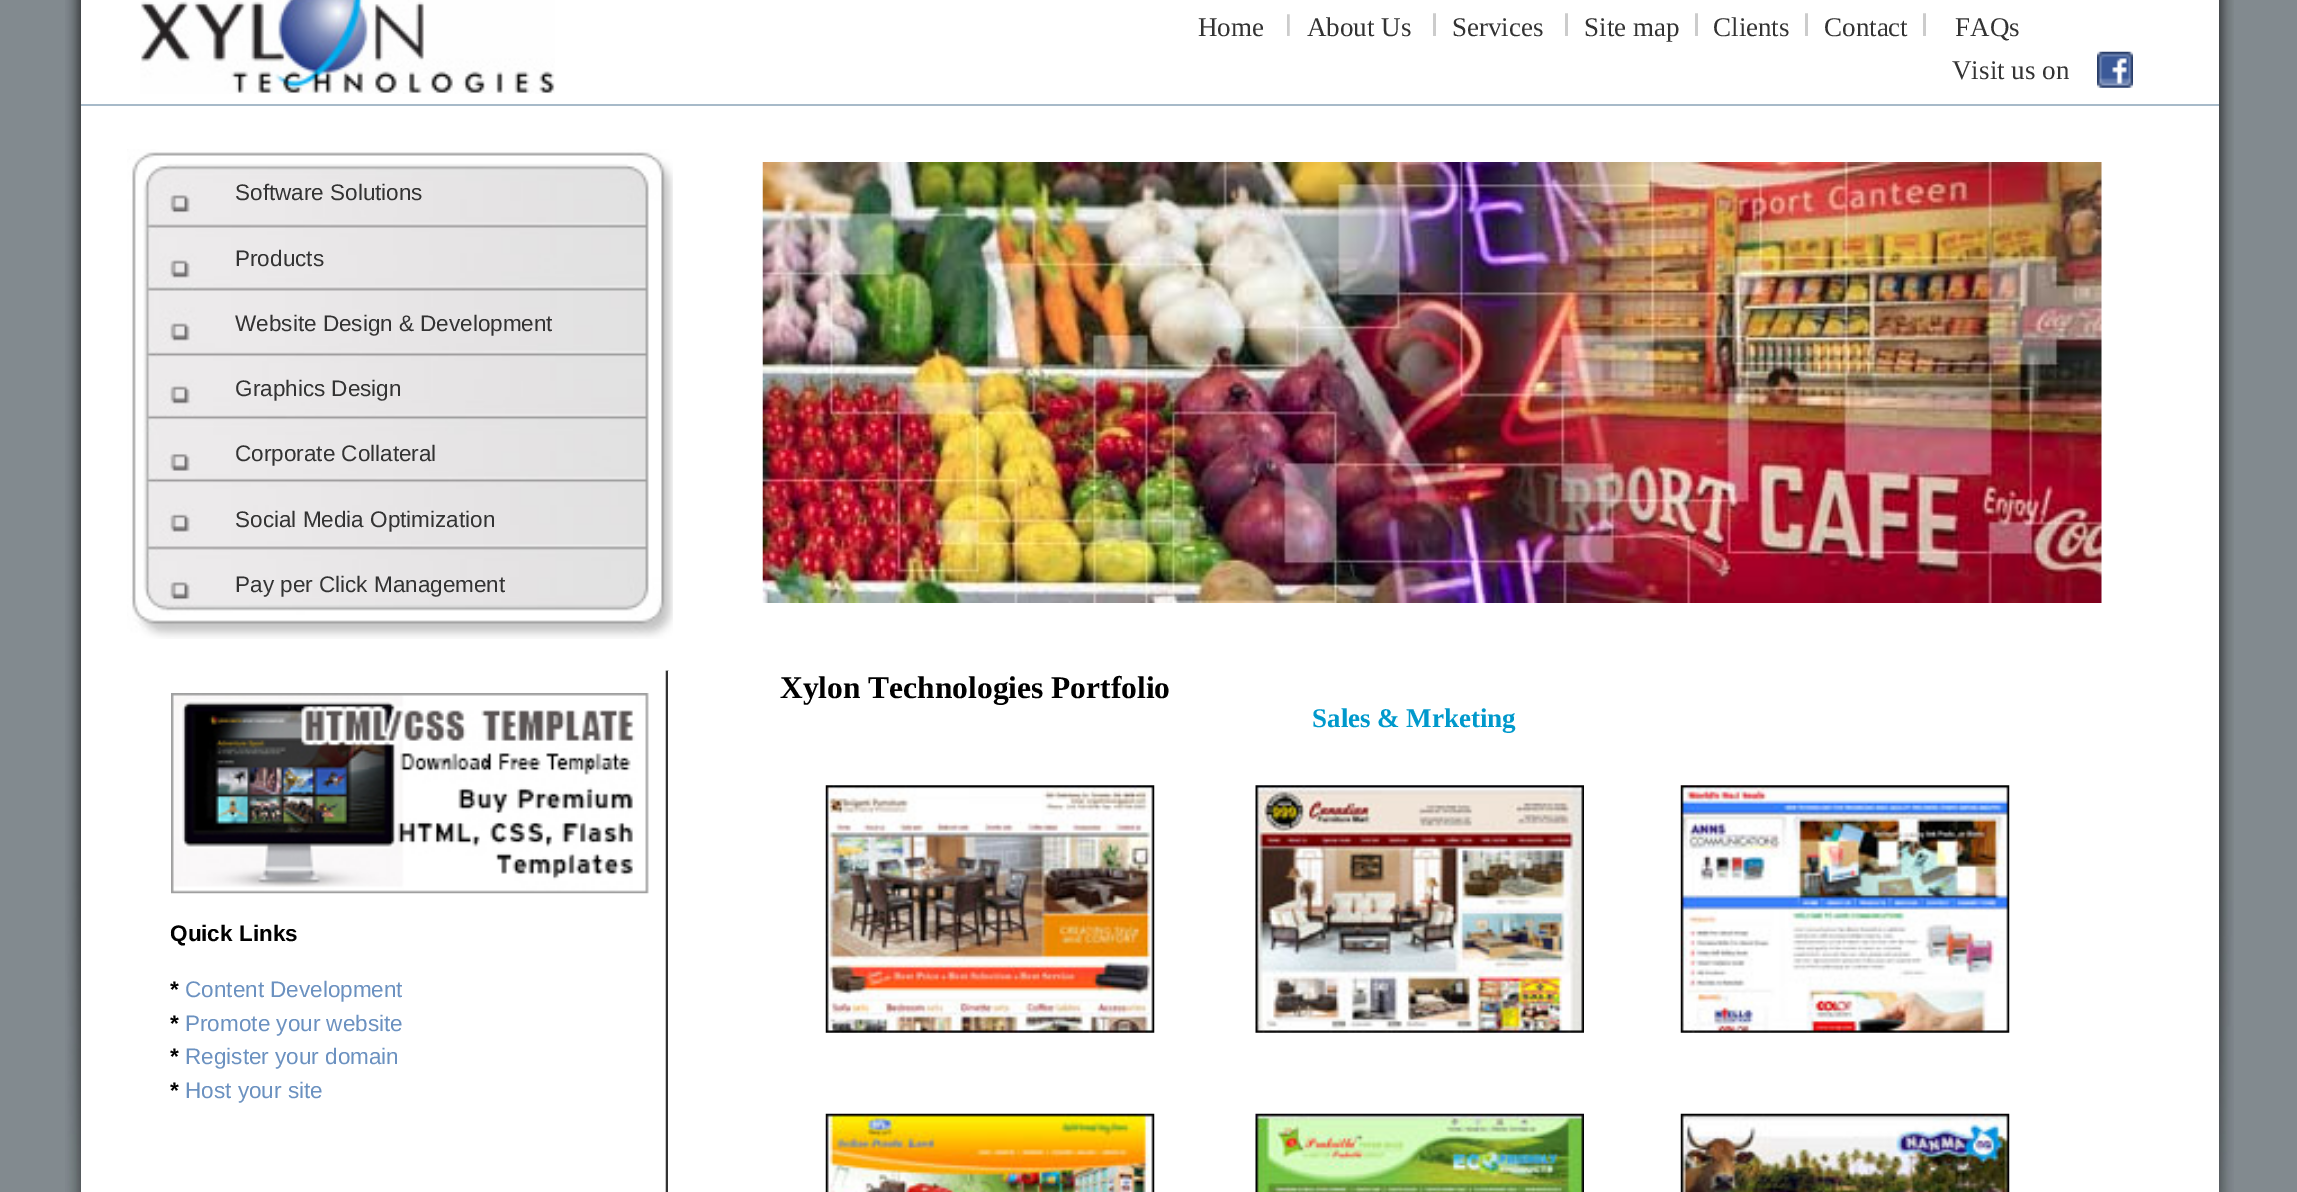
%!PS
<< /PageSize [2297 1192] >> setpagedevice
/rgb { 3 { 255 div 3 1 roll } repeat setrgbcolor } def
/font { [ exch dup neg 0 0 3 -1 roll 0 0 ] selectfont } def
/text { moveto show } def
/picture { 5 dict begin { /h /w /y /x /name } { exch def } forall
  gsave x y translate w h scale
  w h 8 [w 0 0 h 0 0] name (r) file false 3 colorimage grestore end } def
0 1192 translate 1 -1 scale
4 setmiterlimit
130 138 143 rgb
0 0 2297 1192 rectfill
(img_01.rgb) 65 0 2169 1192 picture
255 255 255 rgb
81 0 2138 1192 rectfill
167 186 201 rgb
81 104 2138 2 rectfill
(img_02.rgb) 140 0 415 94 picture
(img_03.rgb) 2097 51 36 37 picture
(img_04.rgb) 127 149 546 490 picture
(img_05.rgb) 762 162 1340 441 picture
(img_06.rgb) 665 670 4 522 picture
255 255 255 rgb
668 671 1 521 rectfill
51 51 51 rgb
666 671 2 521 rectfill
(img_07.rgb) 825 785 330 248 picture
(img_08.rgb) 1255 785 329 248 picture
(img_09.rgb) 1680 785 330 248 picture
(img_10.rgb) 825 1113 330 79 picture
(img_11.rgb) 1255 1113 329 79 picture
(img_12.rgb) 1680 1113 330 79 picture
(img_13.rgb) 171 693 478 201 picture
/LiberationSerif-Regular 27 font
(Home) 1198 36 text
/LiberationSans-Regular 31.5 font
204 204 204 rgb
(I) 1284 36 text
/LiberationSerif-Regular 27 font
51 51 51 rgb
(About Us) 1307 36 text
/LiberationSans-Regular 31.5 font
204 204 204 rgb
(l) 1431 36 text
/LiberationSerif-Regular 27 font
51 51 51 rgb
(Services) 1452 36 text
/LiberationSans-Regular 31.5 font
204 204 204 rgb
(l) 1563 36 text
/LiberationSerif-Regular 27 font
51 51 51 rgb
(Site map) 1584 36 text
/LiberationSans-Regular 31.5 font
204 204 204 rgb
(l) 1693 36 text
/LiberationSerif-Regular 27 font
51 51 51 rgb
(Clients) 1713 36 text
/LiberationSans-Regular 31.5 font
204 204 204 rgb
(l) 1803 36 text
/LiberationSerif-Regular 27 font
51 51 51 rgb
(Contact) 1824 36 text
/LiberationSans-Regular 31.5 font
204 204 204 rgb
(l) 1921 36 text
/LiberationSerif-Regular 27 font
51 51 51 rgb
(FAQs) 1955 36 text
(Visit us on) 1952 79 text
/LiberationSans-Regular 22.5 font
(Software Solutions) 235 200 text
(Products) 235 266 text
(Website Design & Development) 235 331 text
(Graphics Design) 235 396 text
(Corporate Collateral) 235 461 text
(Social Media Optimization) 235 527 text
(Pay per Click Management) 235 592 text
/LiberationSerif-Bold 31.5 font
0 0 0 rgb
(Xylon Technologies Portfolio) 780 698 text
/LiberationSerif-Bold 27 font
0 153 204 rgb
(Sales & Mrketing) 1312 727 text
/LiberationSans-Bold 22.5 font
0 0 0 rgb
(Quick Links) 170 941 text
(*) 170 997 text
/LiberationSans-Regular 22.5 font
107 145 192 rgb
(Content Development) 185 997 text
/LiberationSans-Bold 22.5 font
0 0 0 rgb
(*) 170 1031 text
/LiberationSans-Regular 22.5 font
107 145 192 rgb
(Promote your website) 185 1031 text
/LiberationSans-Bold 22.5 font
0 0 0 rgb
(*) 170 1064 text
/LiberationSans-Regular 22.5 font
107 145 192 rgb
(Register your domain) 185 1064 text
/LiberationSans-Bold 22.5 font
0 0 0 rgb
(*) 170 1098 text
/LiberationSans-Regular 22.5 font
107 145 192 rgb
(Host your site) 185 1098 text
showpage
